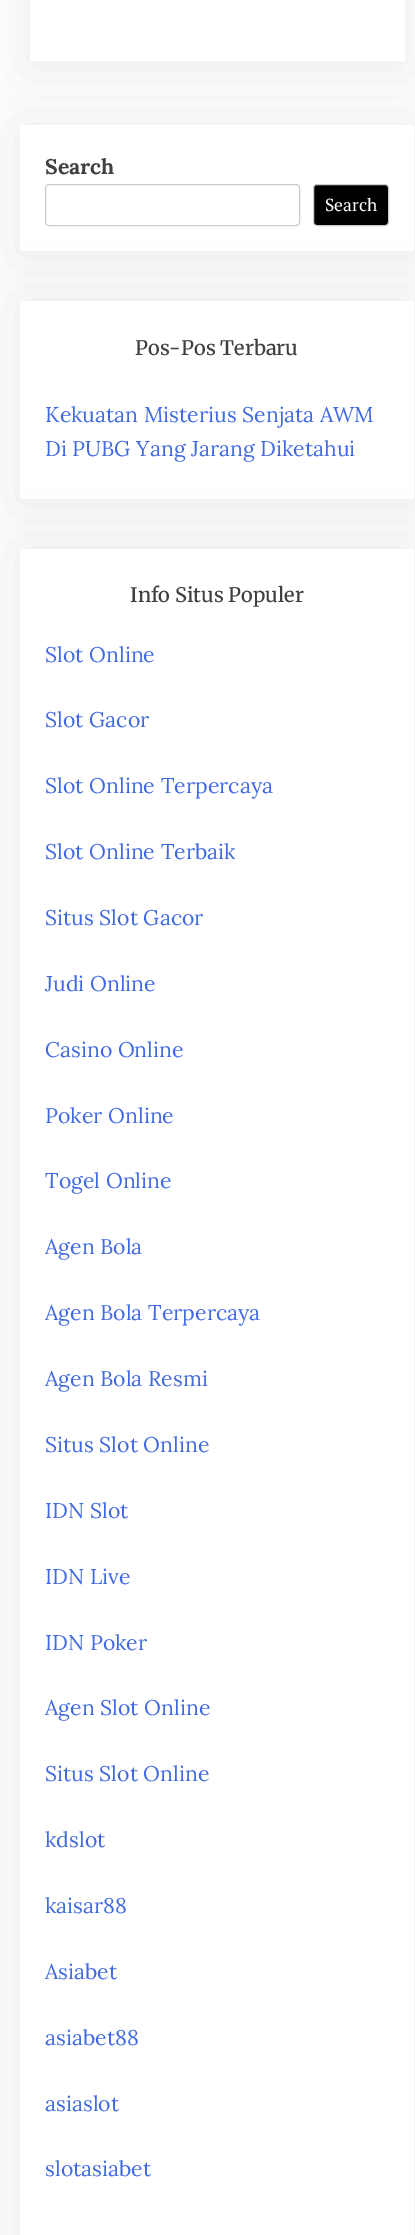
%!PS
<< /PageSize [415 2235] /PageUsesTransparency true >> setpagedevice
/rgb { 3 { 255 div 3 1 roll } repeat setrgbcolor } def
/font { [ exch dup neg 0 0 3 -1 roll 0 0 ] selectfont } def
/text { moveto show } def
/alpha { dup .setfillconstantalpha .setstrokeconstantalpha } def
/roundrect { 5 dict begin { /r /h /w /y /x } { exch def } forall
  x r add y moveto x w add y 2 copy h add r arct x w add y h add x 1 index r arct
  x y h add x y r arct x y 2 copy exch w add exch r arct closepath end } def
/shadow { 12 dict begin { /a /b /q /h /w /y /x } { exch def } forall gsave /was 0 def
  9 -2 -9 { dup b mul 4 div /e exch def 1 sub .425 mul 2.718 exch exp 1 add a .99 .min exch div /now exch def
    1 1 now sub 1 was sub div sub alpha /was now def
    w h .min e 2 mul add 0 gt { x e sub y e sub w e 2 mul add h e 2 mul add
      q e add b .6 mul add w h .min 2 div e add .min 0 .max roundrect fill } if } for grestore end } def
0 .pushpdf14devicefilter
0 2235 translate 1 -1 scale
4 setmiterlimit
255 255 255 rgb
0 0 415 2235 rectfill
36 36 36 rgb
20 129 394 126 0 28 0.1 shadow
255 255 255 rgb
20 125 394 126 rectfill
gsave
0 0 moveto 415 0 rlineto 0 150 rlineto -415 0 rlineto closepath 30 -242 moveto 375 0 rlineto 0 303 rlineto -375 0 rlineto closepath eoclip newpath
36 36 36 rgb
30 -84 375 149 0 28 0.1 shadow
grestore
36 36 36 rgb
20 305 394 198 0 28 0.1 shadow
204 204 204 rgb
45.5 184.5 254 41 3.5 roundrect stroke
0 0 0 rgb
313.5 184.5 75 41 3.5 roundrect gsave fill grestore
204 204 204 rgb
stroke
255 255 255 rgb
20 301 394 198 rectfill
36 36 36 rgb
20 553 394 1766 0 28 0.1 shadow
255 255 255 rgb
20 549 394 1686 rectfill
/Lora-Bold 21.25 font
64 64 64 rgb
(Search) 45 174 text
/PTSerif-Regular 17.5 font
255 255 255 rgb
(Search) 325 211 text
/Merriweather-Medium 20 font
64 64 64 rgb
(Pos-Pos Terbaru) 135 355 text
/Lora-Regular 21.25 font
65 105 225 rgb
(Kekuatan Misterius Senjata AWM) 45 422 text
(Di PUBG Yang Jarang Diketahui) 45 456 text
/Merriweather-Medium 20 font
64 64 64 rgb
(Info Situs Populer) 130 602 text
/Lora-Regular 21.25 font
65 105 225 rgb
(Slot Online) 45 662 text
(Slot Gacor) 45 727 text
(Slot Online Terpercaya) 45 793 text
(Slot Online Terbaik) 45 859 text
(Situs Slot Gacor) 45 925 text
(Judi Online) 45 991 text
(Casino Online) 45 1057 text
(Poker Online) 45 1123 text
(Togel Online) 45 1188 text
(Agen Bola) 45 1254 text
(Agen Bola Terpercaya) 45 1320 text
(Agen Bola Resmi) 45 1386 text
(Situs Slot Online) 45 1452 text
(IDN Slot) 45 1518 text
(IDN Live) 45 1584 text
(IDN Poker) 45 1650 text
(Agen Slot Online) 45 1715 text
(Situs Slot Online) 45 1781 text
(kdslot) 45 1847 text
(kaisar88) 45 1913 text
(Asiabet) 45 1979 text
(asiabet88) 45 2045 text
(asiaslot) 45 2111 text
(slotasiabet) 45 2176 text
.poppdf14devicefilter showpage
